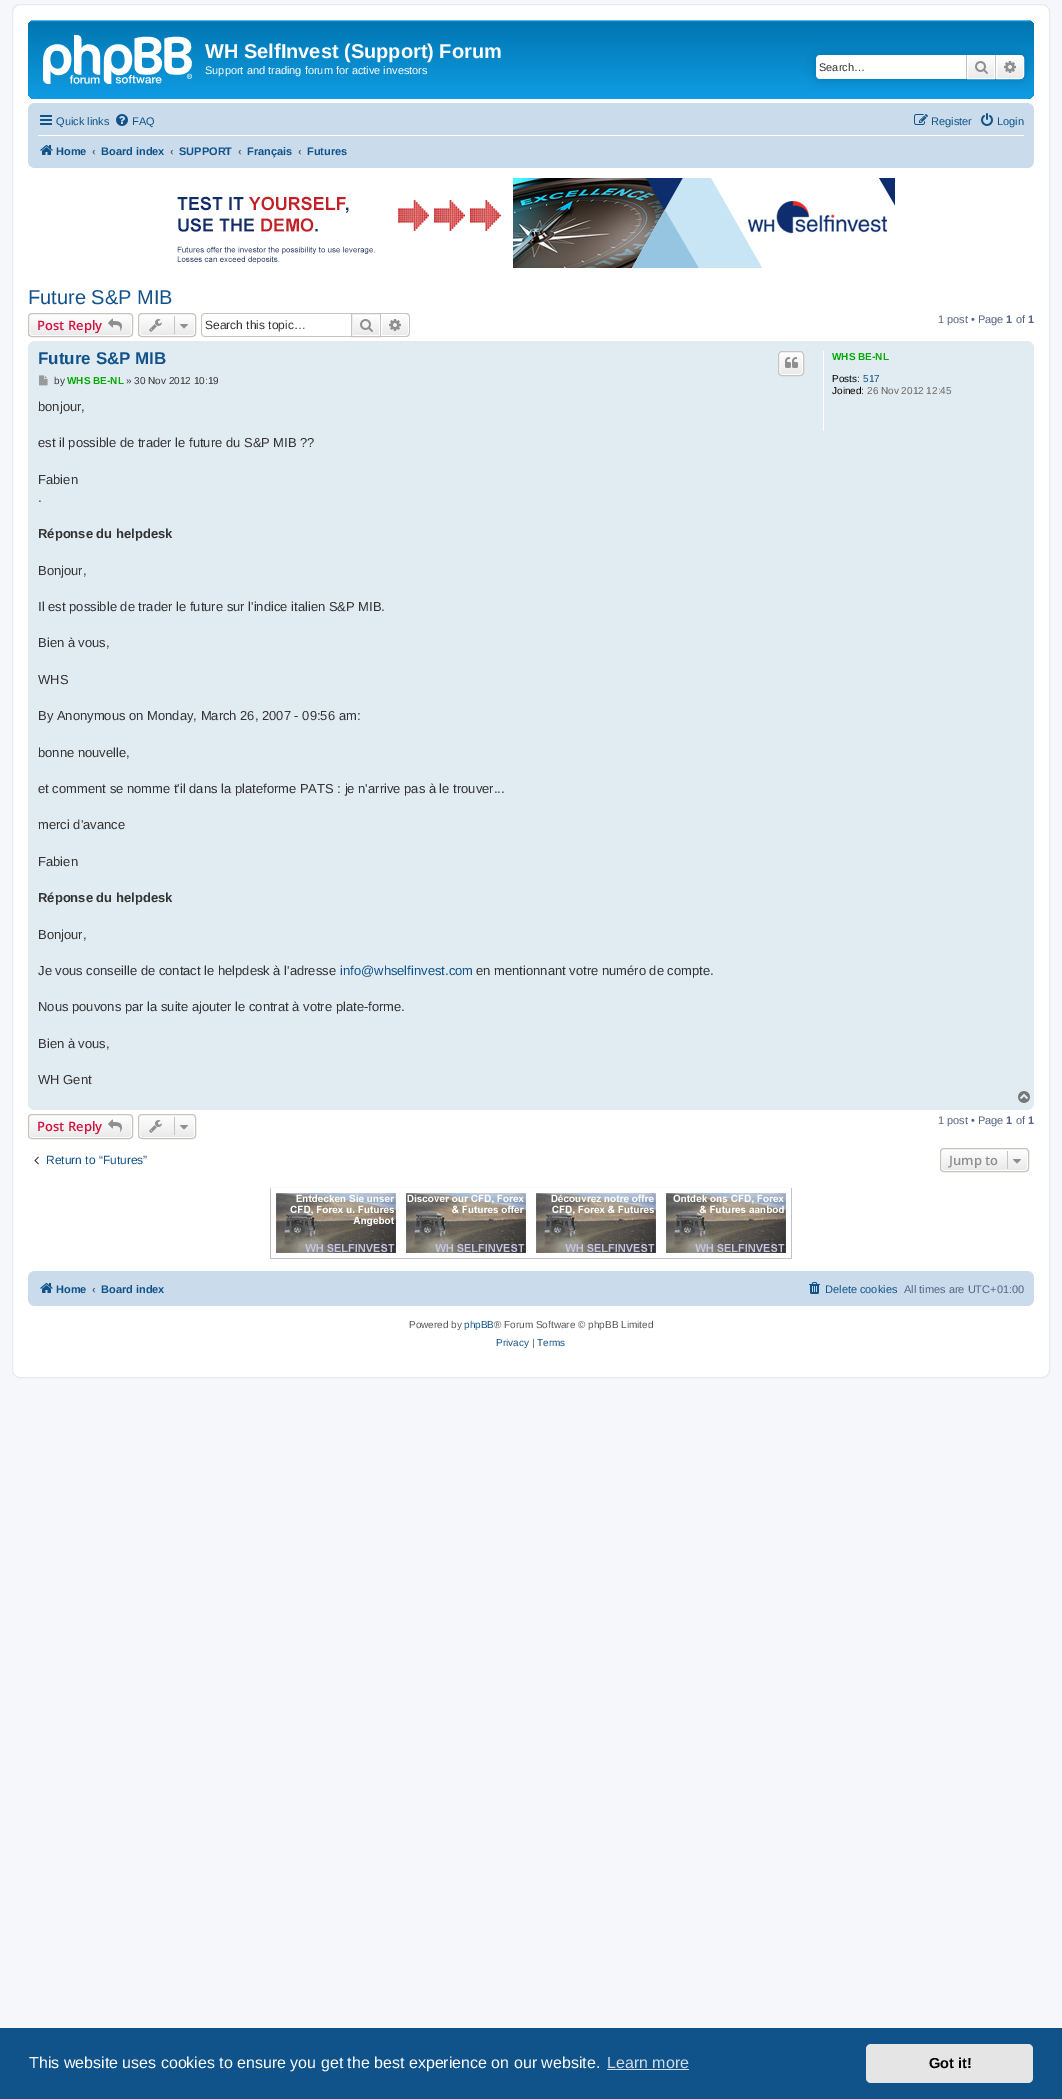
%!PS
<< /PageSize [1062 2099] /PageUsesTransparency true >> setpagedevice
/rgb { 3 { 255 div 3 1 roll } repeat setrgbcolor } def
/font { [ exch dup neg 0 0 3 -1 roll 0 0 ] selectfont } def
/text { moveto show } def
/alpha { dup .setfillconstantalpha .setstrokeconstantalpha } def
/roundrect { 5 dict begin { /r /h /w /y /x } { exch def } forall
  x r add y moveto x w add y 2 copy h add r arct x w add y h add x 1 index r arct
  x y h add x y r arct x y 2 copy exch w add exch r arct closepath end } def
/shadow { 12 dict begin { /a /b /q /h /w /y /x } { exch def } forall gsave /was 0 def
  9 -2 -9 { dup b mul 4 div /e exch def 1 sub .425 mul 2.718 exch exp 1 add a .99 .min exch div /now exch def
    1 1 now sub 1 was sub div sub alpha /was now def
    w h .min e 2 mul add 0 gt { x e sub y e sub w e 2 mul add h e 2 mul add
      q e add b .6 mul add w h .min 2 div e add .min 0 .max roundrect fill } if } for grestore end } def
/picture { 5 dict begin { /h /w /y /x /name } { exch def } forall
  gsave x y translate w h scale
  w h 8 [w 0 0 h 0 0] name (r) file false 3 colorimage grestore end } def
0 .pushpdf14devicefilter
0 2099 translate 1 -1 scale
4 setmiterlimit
245 247 250 rgb
0 0 1062 2099 rectfill
255 255 255 rgb
12.5 4.5 1037 1373 7.5 roundrect gsave fill grestore
230 233 237 rgb
stroke
gsave 28 20 1006 79 7 roundrect clip newpath
<< /ShadingType 2 /ColorSpace /DeviceRGB /Coords [531 20 531 112] /Extend [true true] /Function << /FunctionType 3 /Domain [0 1] /Functions [<< /FunctionType 2 /Domain [0 1] /C0 [0.416 0.808 1] /C1 [0 0.463 0.694] /N 1 >> << /FunctionType 2 /Domain [0 1] /C0 [0 0.463 0.694] /C1 [0.071 0.639 0.922] /N 1 >>] /Bounds [0.02] /Encode [0 1 0 1] >> >> shfill grestore
(img_01.rgb) 43 35 149 49 picture
0 117 176 rgb
816 55 208 24 4 5 1 shadow
255 255 255 rgb
820 55 moveto 146 0 rlineto 0 24 rlineto -146 0 rlineto -2 0 -4 -2 -4 -4 rcurveto 0 -16 rlineto 0 -2 2 -4 4 -4 rcurveto closepath fill
gsave 968 56 moveto 26 0 rlineto 0 22 rlineto -26 0 rlineto closepath clip newpath
<< /ShadingType 2 /ColorSpace /DeviceRGB /Coords [981 55 981 79] /Extend [true true] /Function << /FunctionType 2 /Domain [0 1] /C0 [1 1 1] /C1 [0.914 0.914 0.914] /N 1 >> >> shfill grestore
967.5 55.5 27 23 rectstroke
199 195 191 rgb
995 55 1 24 rectfill
966 55 1 24 rectfill
(img_02.rgb) 975 61 13 13 picture
gsave 996.5 55.5 moveto 23.5 0 rlineto 2 0 3.5 1.5 3.5 3.5 rcurveto 0 16 rlineto 0 2 -1.5 3.5 -3.5 3.5 rcurveto -23.5 0 rlineto closepath clip newpath
<< /ShadingType 2 /ColorSpace /DeviceRGB /Coords [1010 55 1010 79] /Extend [true true] /Function << /FunctionType 2 /Domain [0 1] /C0 [1 1 1] /C1 [0.914 0.914 0.914] /N 1 >> >> shfill grestore
255 255 255 rgb
996.5 55.5 moveto 23.5 0 rlineto 2 0 3.5 1.5 3.5 3.5 rcurveto 0 16 rlineto 0 2 -1.5 3.5 -3.5 3.5 rcurveto -23.5 0 rlineto closepath stroke
(img_03.rgb) 1004 61 12 12 picture
202 220 235 rgb
28 103 1006 65 7 roundrect fill
(img_04.rgb) 40 115 12 10 picture
(img_05.rgb) 116 114 12 12 picture
(img_06.rgb) 914 114 14 11 picture
(img_07.rgb) 981 113 12 13 picture
255 255 255 rgb
38 135 986 1 rectfill
(img_08.rgb) 40 145 13 10 picture
(img_09.rgb) 176 178 719 90 picture
gsave
28 313 105 24 4 roundrect clip newpath
gsave 28 314 moveto 105 0 rlineto 0 22 rlineto -105 0 rlineto closepath clip newpath
<< /ShadingType 2 /ColorSpace /DeviceRGB /Coords [81 314 81 336] /Extend [true true] /Function << /FunctionType 2 /Domain [0 1] /C0 [1 1 1] /C1 [0.914 0.914 0.914] /N 1 >> >> shfill grestore
grestore
29.5 314.5 102 21 2.5 roundrect stroke
199 195 191 rgb
28.5 313.5 104 23 3.5 roundrect stroke
(img_10.rgb) 108 318 14 13 picture
gsave
138 313 58 24 4 roundrect clip newpath
gsave 138 314 moveto 58 0 rlineto 0 22 rlineto -58 0 rlineto closepath clip newpath
<< /ShadingType 2 /ColorSpace /DeviceRGB /Coords [167 314 167 336] /Extend [true true] /Function << /FunctionType 2 /Domain [0 1] /C0 [1 1 1] /C1 [0.914 0.914 0.914] /N 1 >> >> shfill grestore
grestore
255 255 255 rgb
139.5 314.5 55 21 2.5 roundrect stroke
199 195 191 rgb
138.5 313.5 57 23 3.5 roundrect stroke
(img_11.rgb) 149 319 13 13 picture
174 316 1 18 rectfill
(img_12.rgb) 180 324 8 5 picture
205 313 moveto 146 0 rlineto 0 24 rlineto -146 0 rlineto -2 0 -4 -2 -4 -4 rcurveto 0 -16 rlineto 0 -2 2 -4 4 -4 rcurveto closepath 205 314 moveto 146 0 rlineto 0 22 rlineto -146 0 rlineto -2 0 -3 -1 -3 -3 rcurveto 0 -16 rlineto 0 -2 1 -3 3 -3 rcurveto closepath eofill
gsave 353 317 moveto 26 0 rlineto 0 18 rlineto -26 0 rlineto closepath clip newpath
<< /ShadingType 2 /ColorSpace /DeviceRGB /Coords [366 314 366 336] /Extend [true true] /Function << /FunctionType 2 /Domain [0 1] /C0 [1 1 1] /C1 [0.914 0.914 0.914] /N 1 >> >> shfill grestore
351.5 313.5 29 23 rectstroke
(img_13.rgb) 360 319 13 13 picture
gsave 381.5 314.5 moveto 24.5 0 rlineto 1.5 0 2.5 1 2.5 2.5 rcurveto 0 16 rlineto 0 1.5 -1 2.5 -2.5 2.5 rcurveto -24.5 0 rlineto closepath clip newpath
<< /ShadingType 2 /ColorSpace /DeviceRGB /Coords [395 314 395 336] /Extend [true true] /Function << /FunctionType 2 /Domain [0 1] /C0 [1 1 1] /C1 [0.914 0.914 0.914] /N 1 >> >> shfill grestore
255 255 255 rgb
381.5 314.5 moveto 24.5 0 rlineto 1.5 0 2.5 1 2.5 2.5 rcurveto 0 16 rlineto 0 1.5 -1 2.5 -2.5 2.5 rcurveto -24.5 0 rlineto closepath stroke
199 195 191 rgb
381 313 moveto 25 0 rlineto 2 0 4 2 4 4 rcurveto 0 16 rlineto 0 2 -2 4 -4 4 rcurveto -25 0 rlineto closepath 381 314 moveto 25 0 rlineto 1.5 0 3 1.5 3 3 rcurveto 0 16 rlineto 0 1.5 -1.5 3 -3 3 rcurveto -25 0 rlineto closepath eofill
(img_14.rgb) 389 319 12 12 picture
225 235 242 rgb
28 341 1006 769 7 roundrect fill
gsave
778 351 26 25 4 roundrect clip newpath
gsave 778 352 moveto 26 0 rlineto 0 23 rlineto -26 0 rlineto closepath clip newpath
<< /ShadingType 2 /ColorSpace /DeviceRGB /Coords [791 352 791 375] /Extend [true true] /Function << /FunctionType 2 /Domain [0 1] /C0 [1 1 1] /C1 [0.914 0.914 0.914] /N 1 >> >> shfill grestore
grestore
255 255 255 rgb
779.5 352.5 23 22 2.5 roundrect stroke
199 195 191 rgb
778.5 351.5 25 24 3.5 roundrect stroke
(img_15.rgb) 785 357 13 11 picture
(img_16.rgb) 39 375 9 11 picture
255 255 255 rgb
823 351 1 80 rectfill
(img_17.rgb) 1018 1091 12 12 picture
gsave
28 1114 105 25 4 roundrect clip newpath
gsave 28 1115 moveto 105 0 rlineto 0 23 rlineto -105 0 rlineto closepath clip newpath
<< /ShadingType 2 /ColorSpace /DeviceRGB /Coords [81 1115 81 1138] /Extend [true true] /Function << /FunctionType 2 /Domain [0 1] /C0 [1 1 1] /C1 [0.914 0.914 0.914] /N 1 >> >> shfill grestore
grestore
29.5 1115.5 102 22 2.5 roundrect stroke
199 195 191 rgb
28.5 1114.5 104 24 3.5 roundrect stroke
(img_10.rgb) 108 1119 14 13 picture
gsave
138 1114 58 25 4 roundrect clip newpath
gsave 138 1115 moveto 58 0 rlineto 0 23 rlineto -58 0 rlineto closepath clip newpath
<< /ShadingType 2 /ColorSpace /DeviceRGB /Coords [167 1115 167 1138] /Extend [true true] /Function << /FunctionType 2 /Domain [0 1] /C0 [1 1 1] /C1 [0.914 0.914 0.914] /N 1 >> >> shfill grestore
grestore
255 255 255 rgb
139.5 1115.5 55 22 2.5 roundrect stroke
199 195 191 rgb
138.5 1114.5 57 24 3.5 roundrect stroke
(img_11.rgb) 149 1120 13 13 picture
174 1117 1 18 rectfill
(img_12.rgb) 180 1125 8 5 picture
(img_18.rgb) 34 1156 5 9 picture
gsave
940 1148 89 24 4 roundrect clip newpath
gsave 940 1149 moveto 89 0 rlineto 0 22 rlineto -89 0 rlineto closepath clip newpath
<< /ShadingType 2 /ColorSpace /DeviceRGB /Coords [985 1149 985 1171] /Extend [true true] /Function << /FunctionType 2 /Domain [0 1] /C0 [1 1 1] /C1 [0.914 0.914 0.914] /N 1 >> >> shfill grestore
grestore
255 255 255 rgb
941.5 1149.5 86 21 2.5 roundrect stroke
199 195 191 rgb
940.5 1148.5 88 23 3.5 roundrect stroke
1007 1151 1 18 rectfill
(img_12.rgb) 1013 1159 8 5 picture
191 193 207 rgb
791 1187 1 72 rectfill
270 1258 522 1 rectfill
270 1187 1 72 rectfill
250 250 250 rgb
270 1187 522 1 rectfill
(img_19.rgb) 666 1193 120 60 picture
(img_20.rgb) 276 1193 120 60 picture
(img_21.rgb) 406 1193 120 60 picture
(img_22.rgb) 536 1193 120 60 picture
202 220 235 rgb
28 1271 1006 35 7 roundrect fill
(img_08.rgb) 40 1283 13 10 picture
(img_23.rgb) 809 1282 11 12 picture
15 83 138 rgb
0 2028 1062 71 rectfill
207 221 232 rgb
607 2069 82 1 rectfill
229 229 229 rgb
866 2044 167 39 5 roundrect fill
/LiberationSans-Bold 20 font
255 255 255 rgb
(WH SelfInvest \(Support\) Forum) 205 58 text
/LiberationSans-Regular 11 font
(Support and trading forum for active investors) 205 74 text
51 51 51 rgb
(Search…) 819 71 text
16 82 137 rgb
(Quick links) 56 125 text
(FAQ) 132 125 text
(Register) 931 125 text
(Login) 997 125 text
/LiberationSans-Bold 11 font
(Home) 56 155 text
83 100 130 rgb
(‹) 92 155 text
16 82 137 rgb
(Board index) 101 155 text
83 100 130 rgb
(‹) 170 155 text
16 82 137 rgb
(SUPPORT) 179 155 text
83 100 130 rgb
(‹) 238 155 text
16 82 137 rgb
(Français) 247 155 text
83 100 130 rgb
(‹) 298 155 text
16 82 137 rgb
(Futures) 307 155 text
/LiberationSans-Regular 20 font
(Future S&P MIB) 28 304 text
/OpenSans-SemiBold 13 font
211 17 65 rgb
(Post Reply) 37 330 text
/LiberationSans-Regular 12 font
51 51 51 rgb
(Search this topic…) 205 329 text
/LiberationSans-Regular 11 font
83 100 130 rgb
(1 post • Page) 938 323 text
/LiberationSans-Bold 11 font
(1) 1006 323 text
/LiberationSans-Regular 11 font
(of) 1016 323 text
/LiberationSans-Bold 11 font
(1) 1028 323 text
/LiberationSans-Bold 17 font
16 82 137 rgb
(Future S&P MIB) 38 364 text
/LiberationSans-Regular 10 font
51 51 51 rgb
(by) 54 384 text
/LiberationSans-Bold 10 font
0 170 0 rgb
(WHS BE-NL) 67 384 text
/LiberationSans-Regular 10 font
51 51 51 rgb
(» 30 Nov 2012 10:19) 126 384 text
/LiberationSans-Regular 13 font
(bonjour,) 38 411 text
(est il possible de trader le future du S&P MIB ??) 38 447 text
(Fabien) 38 484 text
(.) 38 502 text
/LiberationSans-Bold 13 font
(Réponse du helpdesk) 38 538 text
/LiberationSans-Regular 13 font
(Bonjour,) 38 575 text
(Il est possible de trader le future sur l'indice italien S&P MIB.) 38 611 text
(Bien à vous,) 38 647 text
(WHS) 38 684 text
(By Anonymous on Monday, March 26, 2007 - 09:56 am:) 38 720 text
(bonne nouvelle,) 38 757 text
(et comment se nomme t'il dans la plateforme PATS : je n'arrive pas à le trouver...) 38 793 text
(merci d'avance) 38 829 text
(Fabien) 38 866 text
/LiberationSans-Bold 13 font
(Réponse du helpdesk) 38 902 text
/LiberationSans-Regular 13 font
(Bonjour,) 38 939 text
(Je vous conseille de contact le helpdesk à l'adresse) 38 975 text
16 82 137 rgb
(info@whselfinvest.com) 340 975 text
51 51 51 rgb
(en mentionnant votre numéro de compte.) 476 975 text
(Nous pouvons par la suite ajouter le contrat à votre plate-forme.) 38 1011 text
(Bien à vous,) 38 1048 text
(WH Gent) 38 1084 text
/LiberationSans-Bold 10 font
0 170 0 rgb
(WHS BE-NL) 832 360 text
/LiberationSans-Regular 10 font
0 0 0 rgb
(Posts:) 832 382 text
16 82 137 rgb
(517) 863 382 text
0 0 0 rgb
(Joined:) 832 394 text
102 102 102 rgb
(26 Nov 2012 12:45) 867 394 text
/OpenSans-SemiBold 13 font
211 17 65 rgb
(Post Reply) 37 1131 text
/LiberationSans-Regular 11 font
83 100 130 rgb
(1 post • Page) 938 1124 text
/LiberationSans-Bold 11 font
(1) 1006 1124 text
/LiberationSans-Regular 11 font
(of) 1016 1124 text
/LiberationSans-Bold 11 font
(1) 1028 1124 text
/LiberationSans-Regular 12 font
16 82 137 rgb
(Return to “Futures”) 46 1164 text
/OpenSans-SemiBold 13 font
143 143 143 rgb
(Jump to) 949 1165 text
/LiberationSans-Bold 11 font
16 82 137 rgb
(Home) 56 1293 text
83 100 130 rgb
(‹) 92 1293 text
16 82 137 rgb
(Board index) 101 1293 text
/LiberationSans-Regular 11 font
(Delete cookies) 825 1293 text
83 100 130 rgb
(All times are UTC+01:00) 904 1293 text
/LiberationSans-Regular 10 font
85 85 85 rgb
(Powered by) 409 1328 text
16 82 137 rgb
(phpBB) 464 1328 text
85 85 85 rgb
(® Forum Software © phpBB Limited) 494 1328 text
16 82 137 rgb
(Privacy) 496 1346 text
85 85 85 rgb
(|) 532 1346 text
16 82 137 rgb
(Terms) 537 1346 text
/LiberationSans-Regular 16 font
255 255 255 rgb
(This website uses cookies to ensure you get the best experience on our website.) 29 2068 text
207 221 232 rgb
(Learn more) 607 2068 text
/LiberationSans-Bold 14.5 font
0 0 0 rgb
(Got it!) 929 2068 text
.poppdf14devicefilter showpage
